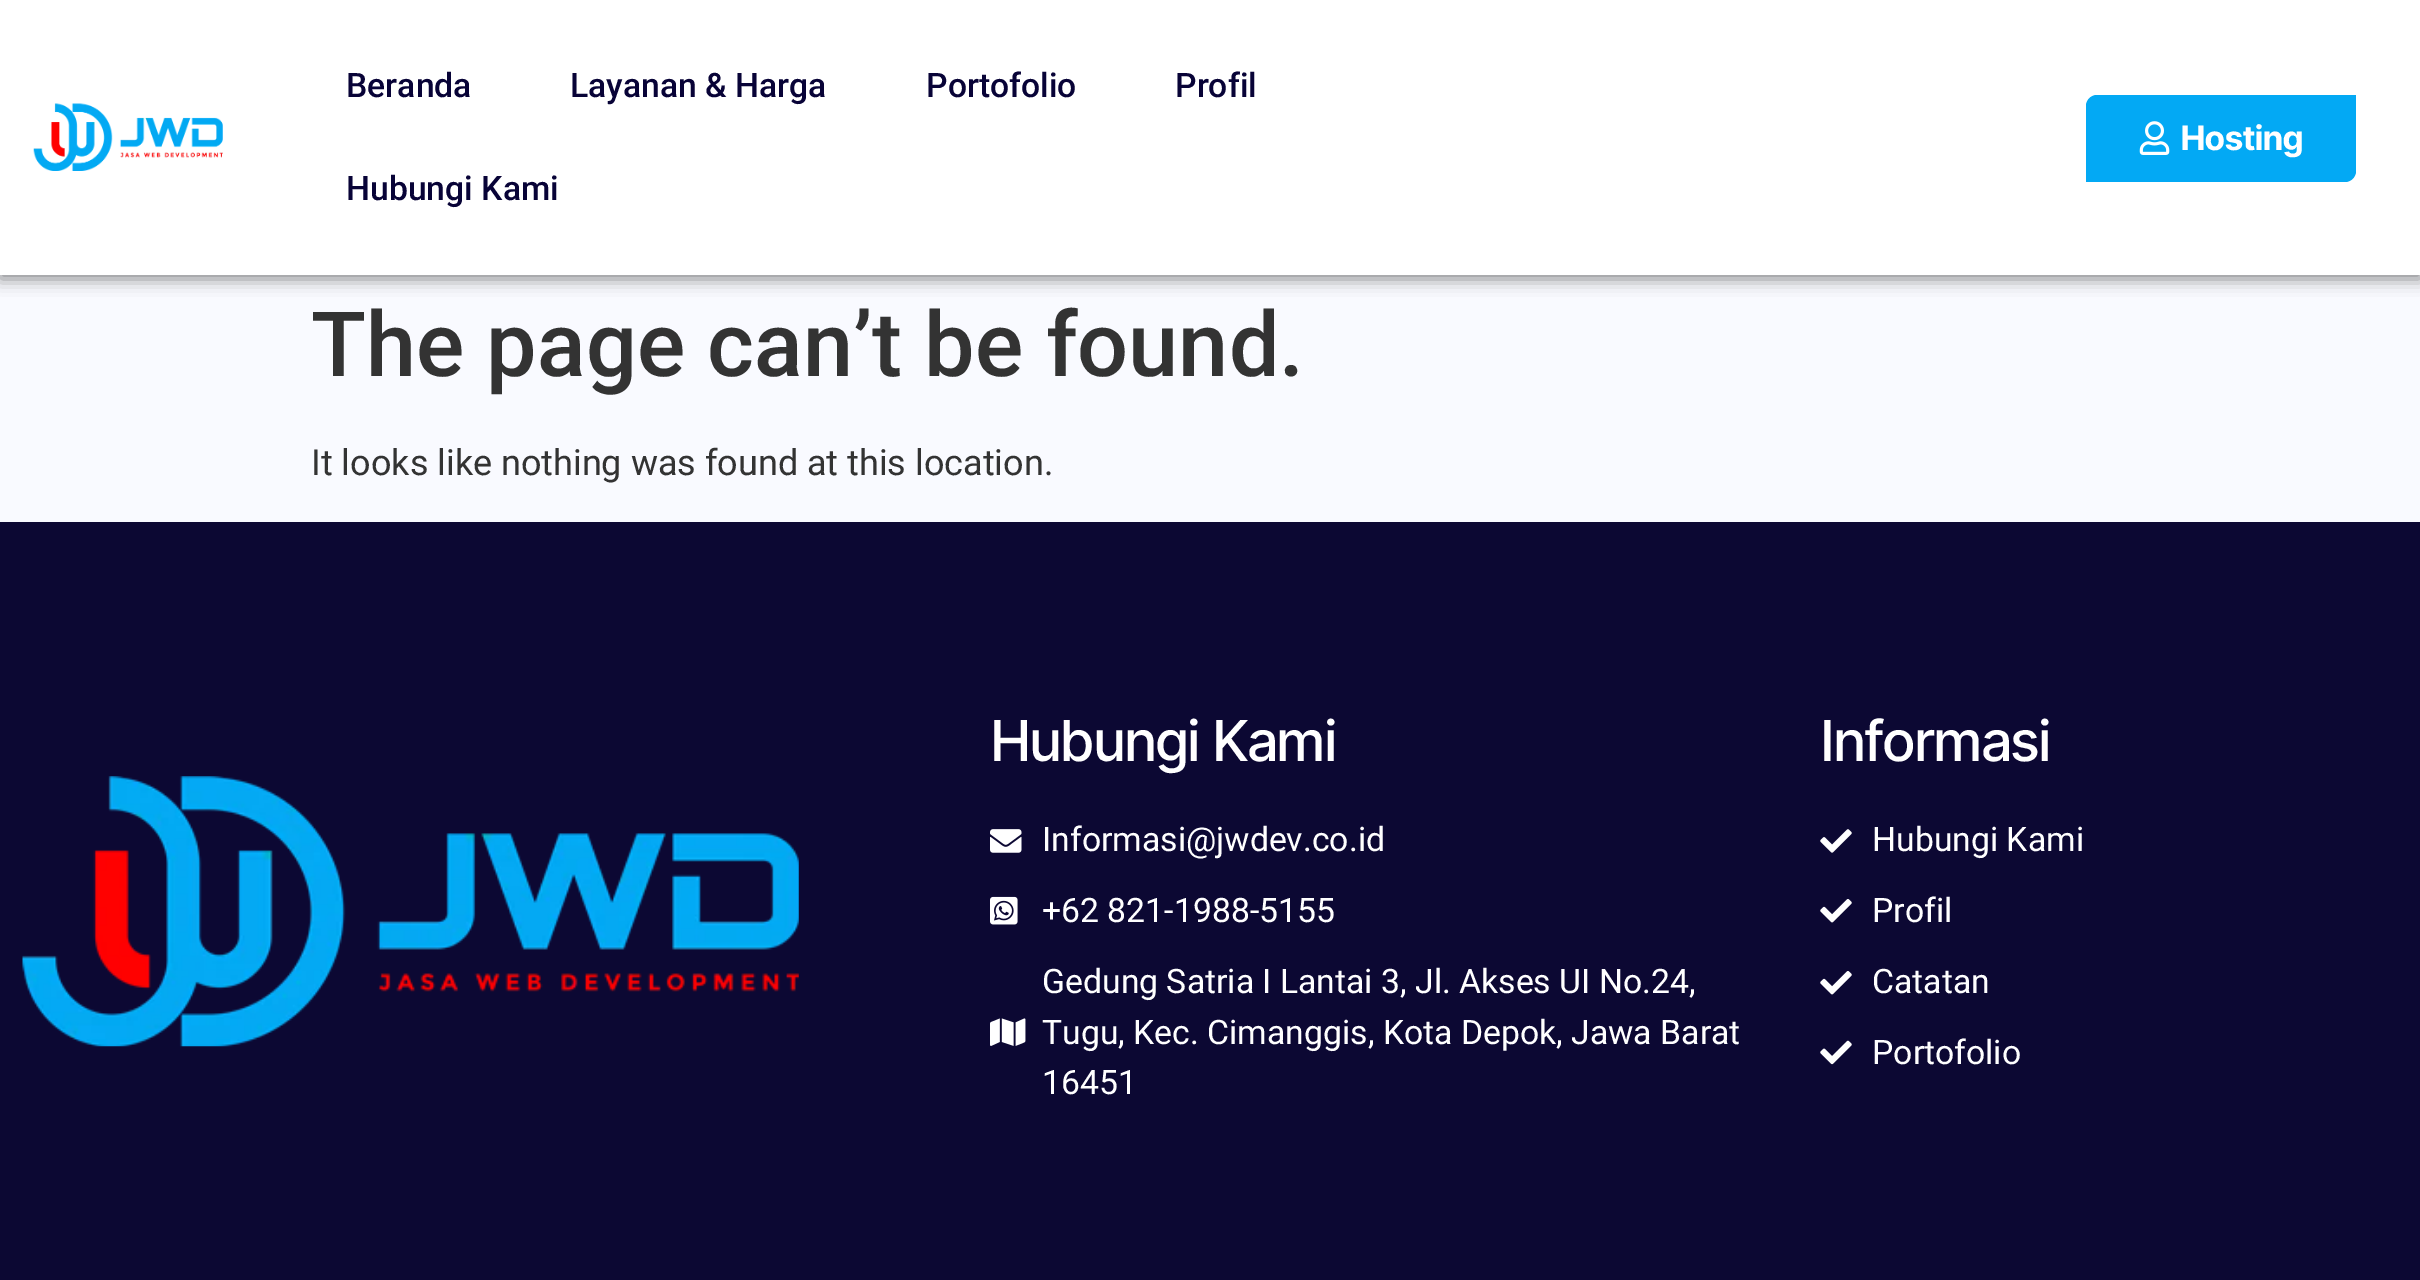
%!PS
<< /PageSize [2420 1280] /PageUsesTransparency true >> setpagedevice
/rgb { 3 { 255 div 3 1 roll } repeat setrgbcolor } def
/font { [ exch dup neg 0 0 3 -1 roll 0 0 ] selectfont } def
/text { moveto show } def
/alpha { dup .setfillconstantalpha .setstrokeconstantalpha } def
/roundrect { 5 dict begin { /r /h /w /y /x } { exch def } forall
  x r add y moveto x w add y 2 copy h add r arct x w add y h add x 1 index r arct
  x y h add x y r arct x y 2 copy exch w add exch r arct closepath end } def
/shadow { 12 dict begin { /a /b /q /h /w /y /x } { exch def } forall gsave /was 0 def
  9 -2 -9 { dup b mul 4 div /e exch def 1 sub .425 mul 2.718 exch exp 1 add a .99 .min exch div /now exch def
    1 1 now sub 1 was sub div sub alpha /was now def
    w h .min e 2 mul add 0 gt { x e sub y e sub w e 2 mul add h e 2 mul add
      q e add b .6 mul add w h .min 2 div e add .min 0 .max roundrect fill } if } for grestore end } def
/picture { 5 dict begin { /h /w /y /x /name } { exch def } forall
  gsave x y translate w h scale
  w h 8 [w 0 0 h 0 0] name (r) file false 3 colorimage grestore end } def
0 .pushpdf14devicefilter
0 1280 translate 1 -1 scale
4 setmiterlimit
249 250 255 rgb
0 0 2420 1280 rectfill
0 0 0 rgb
0 5 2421 274 0 8 0.45 shadow
255 255 255 rgb
0 0 2420 275 rectfill
(img_01.rgb) 33 103 190 68 picture
3 169 244 rgb
2097 95 moveto 259 0 rlineto 0 76 rlineto 0 6 -5 11 -11 11 rcurveto -259 0 rlineto 0 -76 rlineto 0 -6 5 -11 11 -11 rcurveto closepath fill
(img_02.rgb) 2139 121 31 34 picture
12 8 51 rgb
0 522 2420 758 rectfill
(img_03.rgb) 22 776 777 271 picture
(img_04.rgb) 990 829 32 24 picture
(img_05.rgb) 990 896 28 29 picture
(img_06.rgb) 990 1018 36 28 picture
(img_07.rgb) 1820 829 32 24 picture
(img_08.rgb) 1820 899 32 24 picture
(img_08.rgb) 1820 971 32 24 picture
(img_09.rgb) 1820 1040 32 25 picture
/Roboto-Medium 33.75 font
8 3 55 rgb
(Beranda) 346 97 text
(Layanan & Harga) 570 97 text
(Portofolio) 926 97 text
(Profil) 1175 97 text
(Hubungi Kami) 346 200 text
/InterTight-Bold 33.75 font
255 255 255 rgb
(Hosting) 2181 150 text
/Roboto-Medium 90 font
51 51 51 rgb
(The page can’t be found.) 311 376 text
/Roboto-Regular 36 font
(It looks like nothing was found at this location.) 311 475 text
/InterTight-Medium 56.25 font
255 255 255 rgb
(Hubungi Kami) 991 761 text
/Roboto-Regular 33.75 font
(Informasi@jwdev.co.id) 1042 851 text
(+62 821-1988-5155) 1042 922 text
(Gedung Satria I Lantai 3, Jl. Akses UI No.24,) 1042 993 text
(Tugu, Kec. Cimanggis, Kota Depok, Jawa Barat) 1042 1044 text
(16451) 1042 1094 text
/InterTight-Medium 56.25 font
(Informasi) 1821 761 text
/Roboto-Regular 33.75 font
(Hubungi Kami) 1872 851 text
(Profil) 1872 922 text
(Catatan) 1872 993 text
(Portofolio) 1872 1064 text
.poppdf14devicefilter showpage
